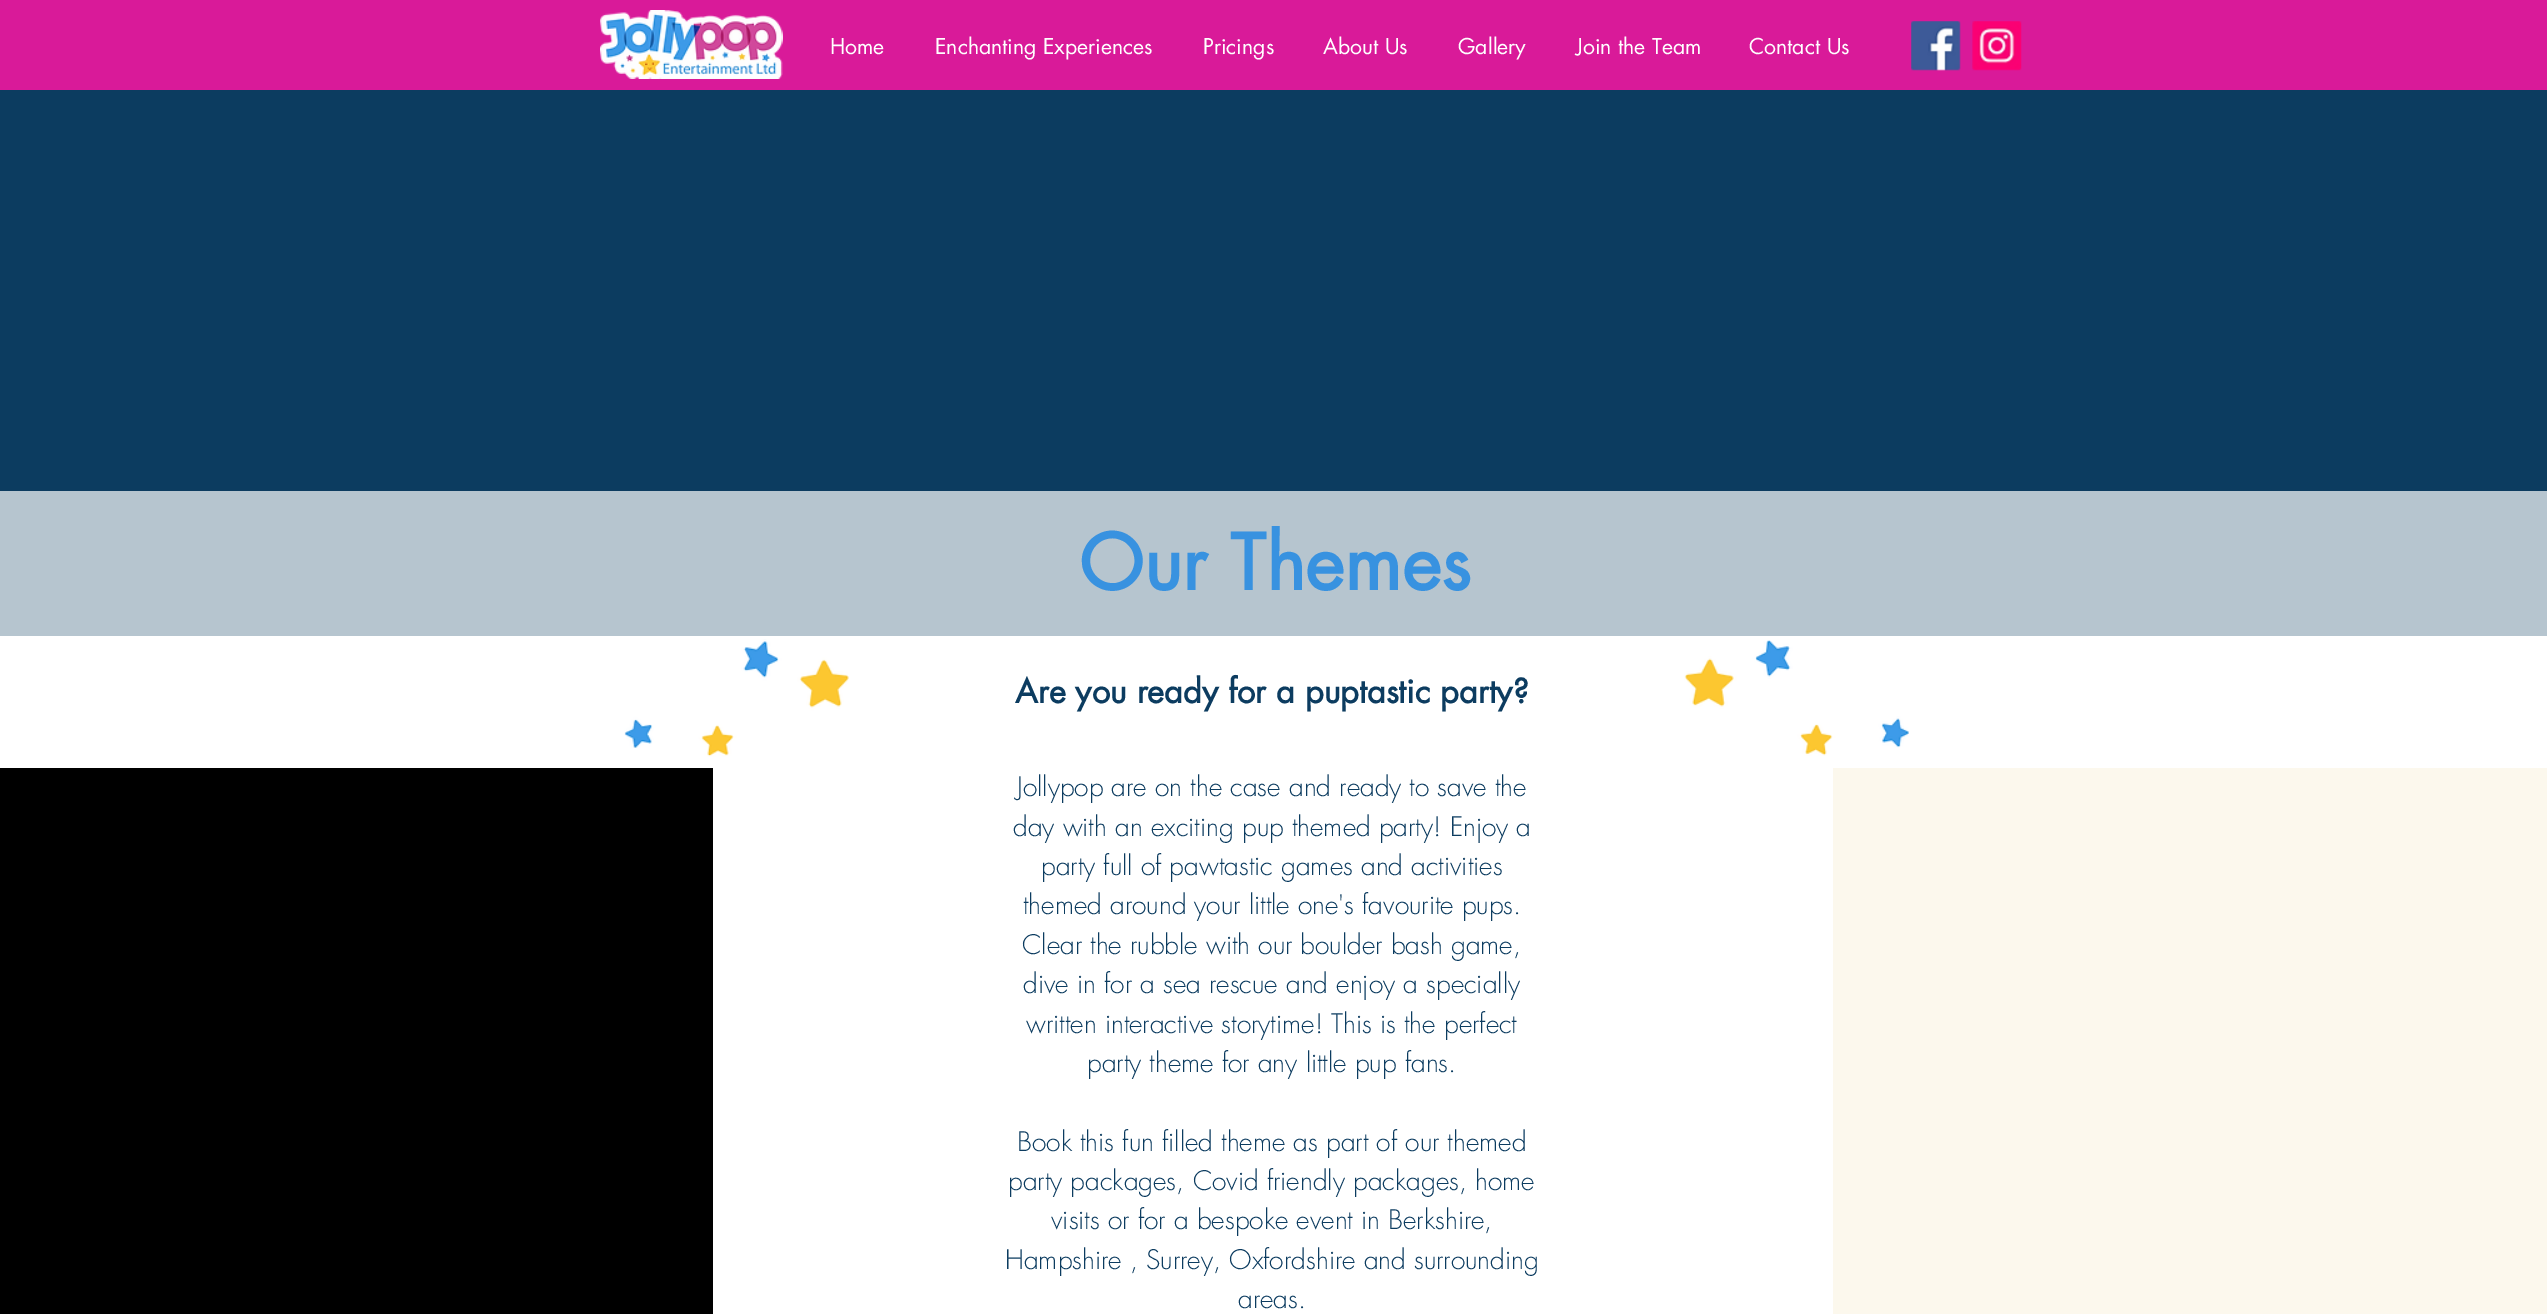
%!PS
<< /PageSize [2547 1314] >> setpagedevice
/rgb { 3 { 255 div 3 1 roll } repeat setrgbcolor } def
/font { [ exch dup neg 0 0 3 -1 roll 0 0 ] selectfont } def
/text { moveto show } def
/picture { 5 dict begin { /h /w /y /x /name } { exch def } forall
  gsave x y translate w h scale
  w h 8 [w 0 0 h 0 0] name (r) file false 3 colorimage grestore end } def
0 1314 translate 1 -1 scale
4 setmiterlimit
255 255 255 rgb
0 0 2547 1314 rectfill
217 26 153 rgb
0 0 2547 90 rectfill
(img_01.rgb) 600 10 183 69 picture
(img_02.rgb) 1911 21 50 50 picture
(img_03.rgb) 1972 21 50 50 picture
12 60 96 rgb
0 90 2547 401 rectfill
182 197 207 rgb
0 491 2547 145 rectfill
(img_04.rgb) 624 639 225 118 picture
(img_05.rgb) 1684 640 225 116 picture
0 0 0 rgb
0 768 713 546 rectfill
252 248 237 rgb
1833 768 714 546 rectfill
/futura-Regular 21.25 font
255 255 255 rgb
(Home) 830 54 text
(Enchanting Experiences) 935 54 text
(Pricings) 1203 54 text
(About Us) 1323 54 text
(Gallery) 1458 54 text
(Join the Team) 1576 54 text
(Contact Us) 1749 54 text
/futura-Bold 75 font
56 146 224 rgb
(Our Themes) 1079 590 text
/futura-Bold 32.5 font
12 60 96 rgb
(Are you ready for a puptastic party?) 1015 703 text
/futura-Light 26.25 font
(Jollypop are on the case and ready to save the) 1017 796 text
(day with an exciting pup themed party! Enjoy a) 1013 836 text
(party full of pawtastic games and activities) 1041 875 text
(themed around your little one's favourite pups.) 1023 914 text
(Clear the rubble with our boulder bash game,) 1022 954 text
(dive in for a sea rescue and enjoy a specially) 1023 993 text
(written interactive storytime! This is the perfect) 1026 1033 text
(party theme for any little pup fans.) 1087 1072 text
(Book this fun filled theme as part of our themed) 1017 1151 text
(party packages, Covid friendly packages, home) 1008 1190 text
(visits or for a bespoke event in Berkshire,) 1051 1229 text
(Hampshire , Surrey, Oxfordshire and surrounding) 1005 1269 text
(areas.) 1238 1308 text
showpage
